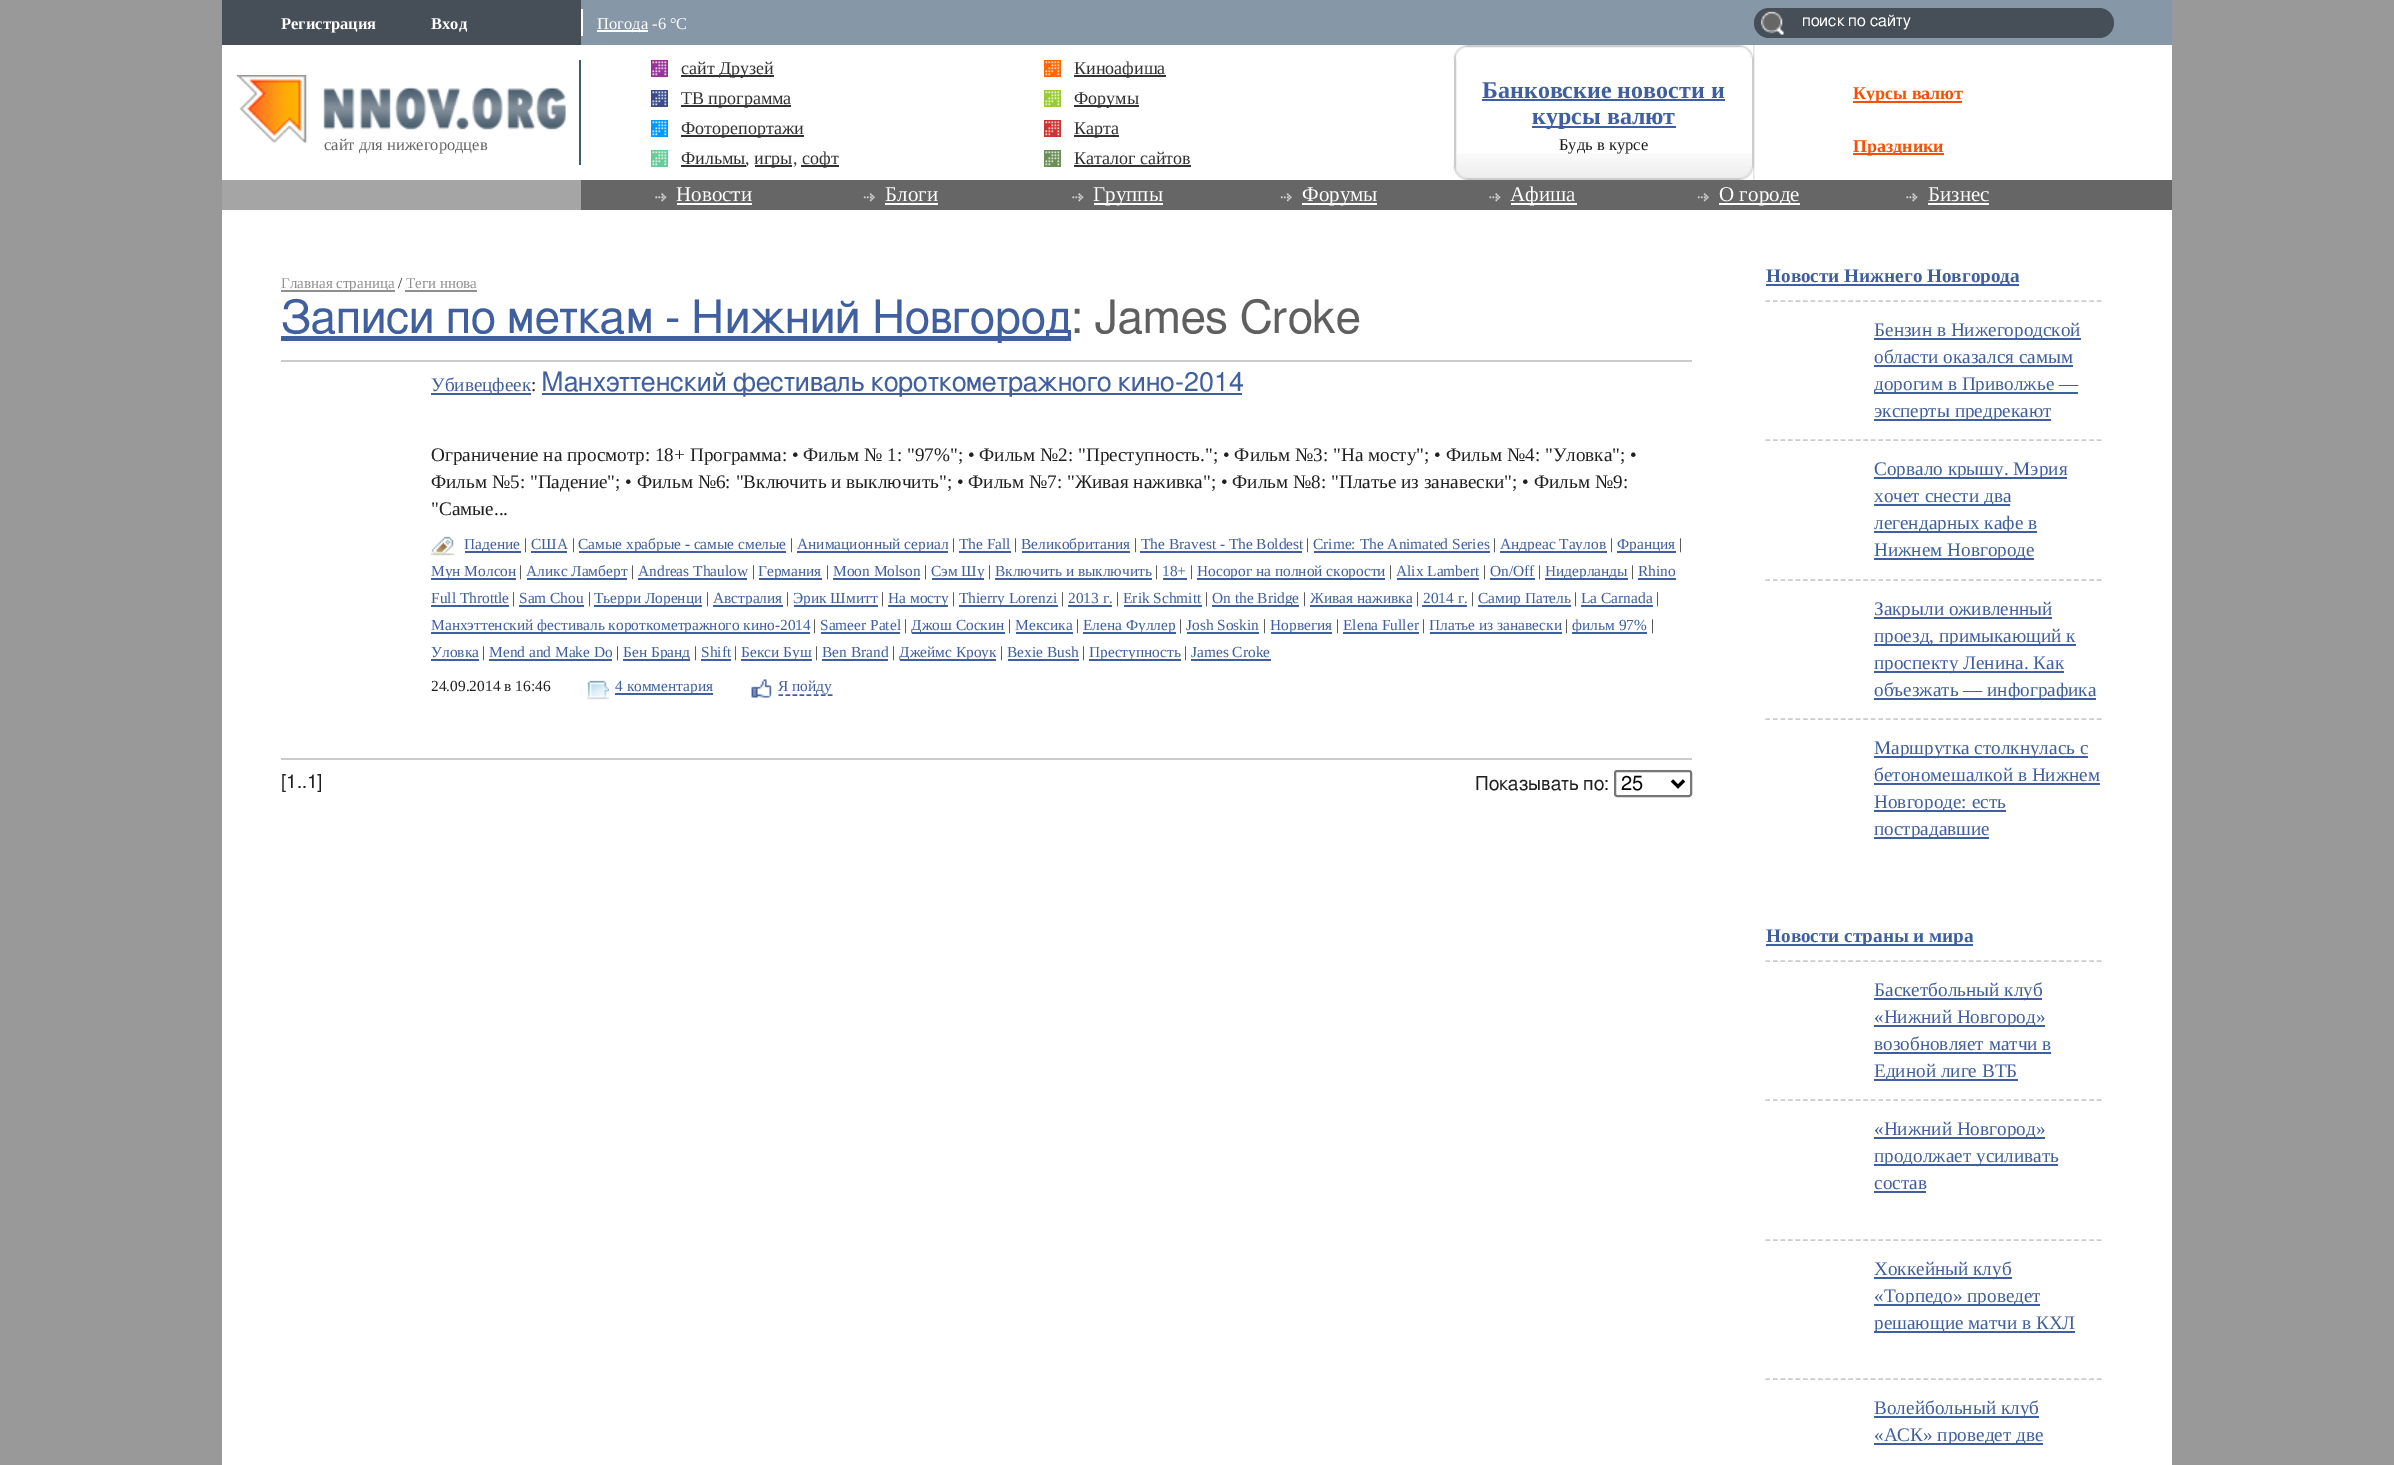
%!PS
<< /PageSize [2394 1465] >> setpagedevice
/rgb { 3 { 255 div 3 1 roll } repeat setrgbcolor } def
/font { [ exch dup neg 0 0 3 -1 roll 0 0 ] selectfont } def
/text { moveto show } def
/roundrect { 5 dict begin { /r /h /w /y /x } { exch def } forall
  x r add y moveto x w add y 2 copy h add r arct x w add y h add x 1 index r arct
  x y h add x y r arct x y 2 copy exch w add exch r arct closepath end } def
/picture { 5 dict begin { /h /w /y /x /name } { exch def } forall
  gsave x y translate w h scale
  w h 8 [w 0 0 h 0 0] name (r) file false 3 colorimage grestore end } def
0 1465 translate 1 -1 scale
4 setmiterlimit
153 153 153 rgb
0 0 2394 1465 rectfill
255 255 255 rgb
222 45 1950 1420 rectfill
134 151 168 rgb
581 0 1591 45 rectfill
70 78 87 rgb
222 0 359 45 rectfill
255 255 255 rgb
581 9 2 27 rectfill
597 30 51 2 rectfill
70 78 87 rgb
1754 8 360 30 15 roundrect fill
(img_01.rgb) 1761 11 23 24 picture
(img_02.rgb) 237 75 329 68 picture
61 94 111 rgb
579 60 2 105 rectfill
153 51 153 rgb
651 60 17 17 rectfill
(img_03.rgb) 652 61 15 15 picture
51 51 51 rgb
681 75 93 2 rectfill
255 102 0 rgb
1044 60 17 17 rectfill
(img_04.rgb) 1045 61 15 15 picture
51 51 51 rgb
1074 75 92 2 rectfill
59 75 140 rgb
651 90 17 17 rectfill
(img_05.rgb) 652 91 15 15 picture
51 51 51 rgb
681 105 110 2 rectfill
153 204 51 rgb
1044 90 17 17 rectfill
(img_06.rgb) 1045 91 15 15 picture
51 51 51 rgb
1074 105 65 2 rectfill
0 153 255 rgb
651 120 17 17 rectfill
(img_07.rgb) 652 121 15 15 picture
51 51 51 rgb
681 135 123 2 rectfill
204 51 51 rgb
1044 120 17 17 rectfill
(img_08.rgb) 1045 121 15 15 picture
51 51 51 rgb
1074 135 45 2 rectfill
102 204 153 rgb
651 150 17 17 rectfill
(img_09.rgb) 652 151 15 15 picture
51 51 51 rgb
681 165 65 2 rectfill
755 165 37 2 rectfill
801 165 38 2 rectfill
107 143 89 rgb
1044 150 17 17 rectfill
(img_10.rgb) 1045 151 15 15 picture
51 51 51 rgb
1074 165 117 2 rectfill
(img_11.rgb) 1453 153 299 26 picture
204 204 204 rgb
2 setlinewidth
1455 46 298 133 rectstroke
(img_12.rgb) 1453 45 14 14 picture
(img_13.rgb) 1740 45 14 14 picture
63 95 158 rgb
1482 99 243 2 rectfill
1532 126 144 2 rectfill
(img_14.rgb) 1453 166 14 14 picture
(img_15.rgb) 1740 166 14 14 picture
248 78 5 rgb
1853 101 109 2 rectfill
1853 153 91 2 rectfill
102 102 102 rgb
581 180 1591 30 rectfill
165 165 165 rgb
222 180 359 30 rectfill
(img_16.rgb) 655 193 12 9 picture
255 255 255 rgb
677 203 75 2 rectfill
(img_17.rgb) 863 193 12 9 picture
885 203 53 2 rectfill
(img_18.rgb) 1072 193 12 9 picture
1094 203 69 2 rectfill
(img_19.rgb) 1280 193 12 9 picture
1302 203 75 2 rectfill
(img_18.rgb) 1489 193 12 9 picture
1511 203 66 2 rectfill
(img_17.rgb) 1697 193 12 9 picture
1719 203 81 2 rectfill
(img_18.rgb) 1906 193 12 9 picture
1928 203 61 2 rectfill
143 143 143 rgb
281 290 114 2 rectfill
405 290 72 2 rectfill
63 95 158 rgb
281 336 790 5 rectfill
204 204 204 rgb
281 360 1411 2 rectfill
63 95 158 rgb
431 393 100 2 rectfill
542 393 700 2 rectfill
(img_20.rgb) 430 536 25 20 picture
465 551 56 2 rectfill
531 551 36 2 rectfill
579 551 207 2 rectfill
797 551 151 2 rectfill
959 551 52 2 rectfill
1022 551 108 2 rectfill
1140 551 162 2 rectfill
1314 551 176 2 rectfill
1500 551 107 2 rectfill
1617 551 59 2 rectfill
431 578 85 2 rectfill
527 578 100 2 rectfill
638 578 109 2 rectfill
759 578 63 2 rectfill
833 578 87 2 rectfill
932 578 52 2 rectfill
995 578 157 2 rectfill
1163 578 24 2 rectfill
1197 578 188 2 rectfill
1397 578 82 2 rectfill
1490 578 45 2 rectfill
1545 578 83 2 rectfill
1638 578 38 2 rectfill
431 605 78 2 rectfill
519 605 65 2 rectfill
594 605 108 2 rectfill
713 605 70 2 rectfill
794 605 84 2 rectfill
888 605 60 2 rectfill
959 605 99 2 rectfill
1068 605 44 2 rectfill
1124 605 78 2 rectfill
1212 605 87 2 rectfill
1310 605 102 2 rectfill
1422 605 45 2 rectfill
1478 605 93 2 rectfill
1581 605 72 2 rectfill
431 632 379 2 rectfill
821 632 79 2 rectfill
912 632 93 2 rectfill
1016 632 57 2 rectfill
1083 632 93 2 rectfill
1187 632 72 2 rectfill
1271 632 61 2 rectfill
1343 632 76 2 rectfill
1430 632 132 2 rectfill
1572 632 75 2 rectfill
431 659 48 2 rectfill
489 659 123 2 rectfill
623 659 67 2 rectfill
701 659 30 2 rectfill
741 659 71 2 rectfill
822 659 66 2 rectfill
900 659 96 2 rectfill
1008 659 71 2 rectfill
1089 659 92 2 rectfill
1191 659 80 2 rectfill
(img_21.rgb) 586 680 23 20 picture
615 693 98 2 rectfill
(img_22.rgb) 751 679 21 19 picture
1.5 setlinewidth
[4.5 2.56] 0 setdash
778.5 695 moveto 54 0 rlineto stroke
204 204 204 rgb
281 758 1411 2 rectfill
118 118 118 rgb
2 setlinewidth
[] 0 setdash
1615 771 76 25 2 roundrect stroke
0 0 0 rgb
3 setlinewidth
1672 780.5 moveto 6 6 rlineto 6 -6 rlineto stroke
63 95 158 rgb
1766 284 253 2 rectfill
204 204 204 rgb
1.5 setlinewidth
[4.5 3.03] 0 setdash
1765.5 301 moveto 336 0 rlineto stroke
63 95 158 rgb
1874 338 207 2 rectfill
1874 365 199 2 rectfill
1874 392 204 2 rectfill
1874 419 177 2 rectfill
204 204 204 rgb
1765.5 440 moveto 336 0 rlineto stroke
63 95 158 rgb
1874 477 193 2 rectfill
1874 504 136 2 rectfill
1874 531 163 2 rectfill
1874 558 160 2 rectfill
204 204 204 rgb
1765.5 580 moveto 336 0 rlineto stroke
63 95 158 rgb
1874 617 178 2 rectfill
1874 644 202 2 rectfill
1874 671 190 2 rectfill
1874 698 222 2 rectfill
204 204 204 rgb
1765.5 719 moveto 336 0 rlineto stroke
63 95 158 rgb
1874 756 214 2 rectfill
1874 783 226 2 rectfill
1874 810 132 2 rectfill
1874 837 115 2 rectfill
1766 944 207 2 rectfill
204 204 204 rgb
1765.5 961 moveto 336 0 rlineto stroke
63 95 158 rgb
1874 998 168 2 rectfill
1874 1025 171 2 rectfill
1874 1052 177 2 rectfill
1874 1079 144 2 rectfill
204 204 204 rgb
1765.5 1100 moveto 336 0 rlineto stroke
63 95 158 rgb
1874 1137 171 2 rectfill
1874 1164 184 2 rectfill
1874 1191 52 2 rectfill
204 204 204 rgb
1765.5 1240 moveto 336 0 rlineto stroke
63 95 158 rgb
1874 1277 138 2 rectfill
1874 1304 166 2 rectfill
1874 1331 201 2 rectfill
204 204 204 rgb
1765.5 1379 moveto 336 0 rlineto stroke
63 95 158 rgb
1874 1416 165 2 rectfill
1874 1443 169 2 rectfill
/LiberationSerif-Bold 16.5 font
255 255 255 rgb
(Регистрация) 281 29 text
(Вход) 431 29 text
/LiberationSerif-Regular 16.5 font
(Погода -6 °C) 597 29 text
/FreeSans-Regular 16.25 font
(поиск по сайту) 1802 26 text
/LiberationSerif-Regular 16.5 font
102 102 102 rgb
(сайт для нижегородцев) 324 150 text
/LiberationSerif-Regular 18 font
51 51 51 rgb
(сайт Друзей) 681 74 text
(Киноафиша) 1074 74 text
(ТВ программа) 681 104 text
(Форумы) 1074 104 text
(Фоторепортажи) 681 134 text
(Карта) 1074 134 text
(Фильмы) 681 164 text
(,) 745 164 text
(игры) 754 164 text
(,) 793 164 text
(софт) 802 164 text
(Каталог сайтов) 1074 164 text
/LiberationSerif-Bold 24 font
63 95 158 rgb
(Банковские новости и) 1482 98 text
(курсы валют) 1532 124 text
/LiberationSerif-Regular 16.5 font
32 32 32 rgb
(Будь в курсе) 1559 150 text
/LiberationSerif-Bold 18 font
248 78 5 rgb
(Курсы валют) 1853 99 text
(Праздники) 1853 152 text
/LiberationSerif-Regular 21 font
255 255 255 rgb
(Новости) 676 201 text
(Блоги) 885 201 text
(Группы) 1093 201 text
(Форумы) 1302 201 text
(Афиша) 1510 201 text
(О городе) 1719 201 text
(Бизнес) 1928 201 text
/LiberationSerif-Regular 15 font
143 143 143 rgb
(Главная страница) 281 288 text
32 32 32 rgb
(/) 398 288 text
143 143 143 rgb
(Теги ннова) 406 288 text
/FreeSans-Regular 46.1 font
63 95 158 rgb
(Записи по меткам - Нижний Новгород) 281 333 text
95 95 95 rgb
(: James Croke) 1071 333 text
/LiberationSerif-Regular 19.2 font
63 95 158 rgb
(Убивецфеек) 431 391 text
32 32 32 rgb
(:) 531 391 text
/FreeSans-Regular 26.9 font
63 95 158 rgb
(Манхэттенский фестиваль короткометражного кино-2014) 541 391 text
/LiberationSerif-Regular 19.2 font
32 32 32 rgb
(Ограничение на просмотр: 18+ Программа: • Фильм № 1: "97%"; • Фильм №2: "Преступность."; • Фильм №3: "На мосту"; • Фильм №4: "Уловка"; •) 431 461 text
(Фильм №5: "Падение"; • Фильм №6: "Включить и выключить"; • Фильм №7: "Живая наживка"; • Фильм №8: "Платье из занавески"; • Фильм №9:) 431 488 text
("Самые...) 431 515 text
/LiberationSerif-Regular 15.4 font
63 95 158 rgb
(Падение) 464 549 text
32 32 32 rgb
(|) 524 549 text
63 95 158 rgb
(США) 531 549 text
32 32 32 rgb
(|) 572 549 text
63 95 158 rgb
(Самые храбрые - самые смелые) 578 549 text
32 32 32 rgb
(|) 790 549 text
63 95 158 rgb
(Анимационный сериал) 797 549 text
32 32 32 rgb
(|) 952 549 text
63 95 158 rgb
(The Fall) 959 549 text
32 32 32 rgb
(|) 1014 549 text
63 95 158 rgb
(Великобритания) 1021 549 text
32 32 32 rgb
(|) 1134 549 text
63 95 158 rgb
(The Bravest - The Boldest) 1141 549 text
32 32 32 rgb
(|) 1306 549 text
63 95 158 rgb
(Crime: The Animated Series) 1313 549 text
32 32 32 rgb
(|) 1493 549 text
63 95 158 rgb
(Андреас Таулов) 1500 549 text
32 32 32 rgb
(|) 1610 549 text
63 95 158 rgb
(Франция) 1617 549 text
32 32 32 rgb
(|) 1679 549 text
63 95 158 rgb
(Мун Молсон) 431 576 text
32 32 32 rgb
(|) 519 576 text
63 95 158 rgb
(Аликс Ламберт) 526 576 text
32 32 32 rgb
(|) 631 576 text
63 95 158 rgb
(Andreas Thaulow) 638 576 text
32 32 32 rgb
(|) 752 576 text
63 95 158 rgb
(Германия) 758 576 text
32 32 32 rgb
(|) 826 576 text
63 95 158 rgb
(Moon Molson) 833 576 text
32 32 32 rgb
(|) 924 576 text
63 95 158 rgb
(Сэм Шу) 931 576 text
32 32 32 rgb
(|) 988 576 text
63 95 158 rgb
(Включить и выключить) 995 576 text
32 32 32 rgb
(|) 1155 576 text
63 95 158 rgb
(18+) 1162 576 text
32 32 32 rgb
(|) 1190 576 text
63 95 158 rgb
(Носорог на полной скорости) 1197 576 text
32 32 32 rgb
(|) 1389 576 text
63 95 158 rgb
(Alix Lambert) 1396 576 text
32 32 32 rgb
(|) 1483 576 text
63 95 158 rgb
(On/Off) 1490 576 text
32 32 32 rgb
(|) 1538 576 text
63 95 158 rgb
(Нидерланды) 1545 576 text
32 32 32 rgb
(|) 1631 576 text
63 95 158 rgb
(Rhino) 1638 576 text
(Full Throttle) 431 603 text
32 32 32 rgb
(|) 512 603 text
63 95 158 rgb
(Sam Chou) 519 603 text
32 32 32 rgb
(|) 588 603 text
63 95 158 rgb
(Тьерри Лоренци) 594 603 text
32 32 32 rgb
(|) 706 603 text
63 95 158 rgb
(Австралия) 713 603 text
32 32 32 rgb
(|) 786 603 text
63 95 158 rgb
(Эрик Шмитт) 793 603 text
32 32 32 rgb
(|) 881 603 text
63 95 158 rgb
(На мосту) 888 603 text
32 32 32 rgb
(|) 952 603 text
63 95 158 rgb
(Thierry Lorenzi) 959 603 text
32 32 32 rgb
(|) 1061 603 text
63 95 158 rgb
(2013 г.) 1068 603 text
32 32 32 rgb
(|) 1116 603 text
63 95 158 rgb
(Erik Schmitt) 1123 603 text
32 32 32 rgb
(|) 1205 603 text
63 95 158 rgb
(On the Bridge) 1212 603 text
32 32 32 rgb
(|) 1303 603 text
63 95 158 rgb
(Живая наживка) 1310 603 text
32 32 32 rgb
(|) 1416 603 text
63 95 158 rgb
(2014 г.) 1423 603 text
32 32 32 rgb
(|) 1471 603 text
63 95 158 rgb
(Самир Патель) 1478 603 text
32 32 32 rgb
(|) 1574 603 text
63 95 158 rgb
(La Carnada) 1581 603 text
32 32 32 rgb
(|) 1656 603 text
63 95 158 rgb
(Манхэттенский фестиваль короткометражного кино-2014) 431 630 text
32 32 32 rgb
(|) 813 630 text
63 95 158 rgb
(Sameer Patel) 820 630 text
32 32 32 rgb
(|) 904 630 text
63 95 158 rgb
(Джош Соскин) 911 630 text
32 32 32 rgb
(|) 1008 630 text
63 95 158 rgb
(Мексика) 1015 630 text
32 32 32 rgb
(|) 1076 630 text
63 95 158 rgb
(Елена Фуллер) 1083 630 text
32 32 32 rgb
(|) 1179 630 text
63 95 158 rgb
(Josh Soskin) 1186 630 text
32 32 32 rgb
(|) 1263 630 text
63 95 158 rgb
(Норвегия) 1270 630 text
32 32 32 rgb
(|) 1336 630 text
63 95 158 rgb
(Elena Fuller) 1343 630 text
32 32 32 rgb
(|) 1422 630 text
63 95 158 rgb
(Платье из занавески) 1429 630 text
32 32 32 rgb
(|) 1565 630 text
63 95 158 rgb
(фильм 97%) 1572 630 text
32 32 32 rgb
(|) 1651 630 text
63 95 158 rgb
(Уловка) 431 657 text
32 32 32 rgb
(|) 482 657 text
63 95 158 rgb
(Mend and Make Do) 489 657 text
32 32 32 rgb
(|) 616 657 text
63 95 158 rgb
(Бен Бранд) 623 657 text
32 32 32 rgb
(|) 694 657 text
63 95 158 rgb
(Shift) 701 657 text
32 32 32 rgb
(|) 734 657 text
63 95 158 rgb
(Бекси Буш) 741 657 text
32 32 32 rgb
(|) 815 657 text
63 95 158 rgb
(Ben Brand) 822 657 text
32 32 32 rgb
(|) 892 657 text
63 95 158 rgb
(Джеймс Кроук) 899 657 text
32 32 32 rgb
(|) 1000 657 text
63 95 158 rgb
(Bexie Bush) 1007 657 text
32 32 32 rgb
(|) 1082 657 text
63 95 158 rgb
(Преступность) 1089 657 text
32 32 32 rgb
(|) 1184 657 text
63 95 158 rgb
(James Croke) 1191 657 text
32 32 32 rgb
(24.09.2014 в 16:46) 431 691 text
63 95 158 rgb
(4 комментария) 615 691 text
(Я пойду) 778 691 text
/FreeSans-Regular 19.2 font
32 32 32 rgb
([1..1]) 281 788 text
(Показывать по:) 1475 790 text
/FreeSans-Regular 20 font
0 0 0 rgb
(25) 1621 790 text
/LiberationSerif-Bold 19.2 font
63 95 158 rgb
(Новости Нижнего Новгорода) 1766 282 text
/LiberationSerif-Regular 19.2 font
(Бензин в Нижегородской) 1874 336 text
(области оказался самым) 1874 363 text
(дорогим в Приволжье —) 1874 390 text
(эксперты предрекают) 1874 417 text
(Сорвало крышу. Мэрия) 1874 475 text
(хочет снести два) 1874 502 text
(легендарных кафе в) 1874 529 text
(Нижнем Новгороде) 1874 556 text
(Закрыли оживленный) 1874 615 text
(проезд, примыкающий к) 1874 642 text
(проспекту Ленина. Как) 1874 669 text
(объезжать — инфографика) 1874 696 text
(Маршрутка столкнулась с) 1874 754 text
(бетономешалкой в Нижнем) 1874 781 text
(Новгороде: есть) 1874 808 text
(пострадавшие) 1874 835 text
/LiberationSerif-Bold 19.2 font
(Новости страны и мира) 1766 942 text
/LiberationSerif-Regular 19.2 font
(Баскетбольный клуб) 1874 996 text
(«Нижний Новгород») 1874 1023 text
(возобновляет матчи в) 1874 1050 text
(Единой лиге ВТБ) 1874 1077 text
(«Нижний Новгород») 1874 1135 text
(продолжает усиливать) 1874 1162 text
(состав) 1874 1189 text
(Хоккейный клуб) 1874 1275 text
(«Торпедо» проведет) 1874 1302 text
(решающие матчи в КХЛ) 1874 1329 text
(Волейбольный клуб) 1874 1414 text
(«АСК» проведет две) 1874 1441 text
showpage
